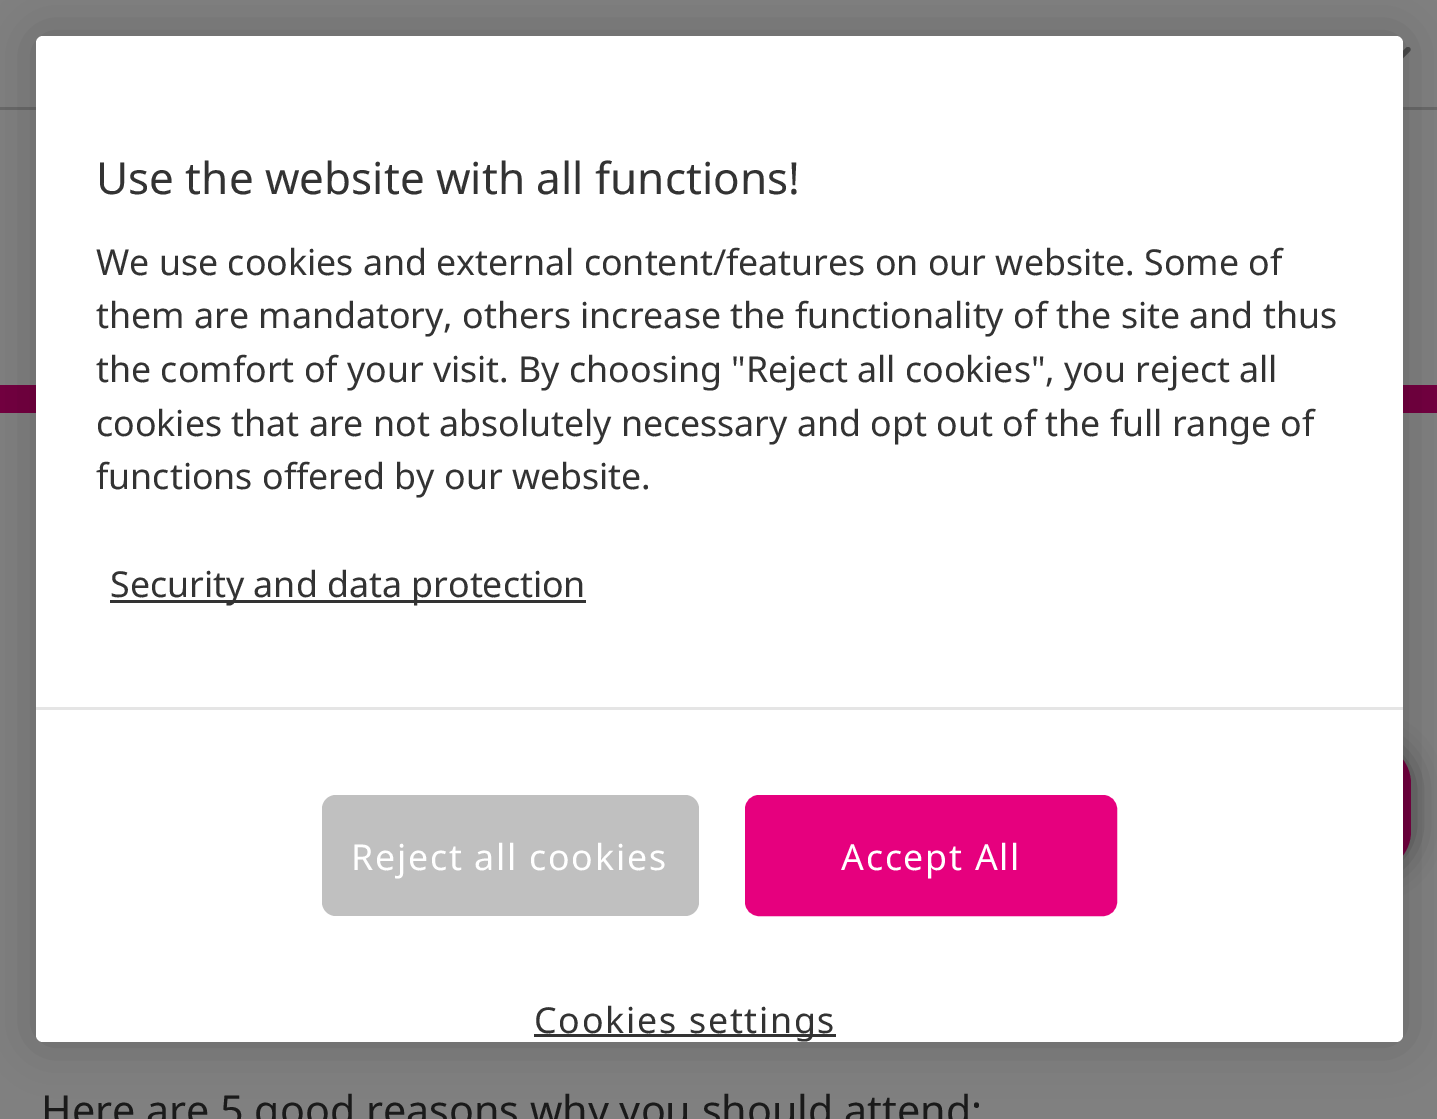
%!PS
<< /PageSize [1437 1119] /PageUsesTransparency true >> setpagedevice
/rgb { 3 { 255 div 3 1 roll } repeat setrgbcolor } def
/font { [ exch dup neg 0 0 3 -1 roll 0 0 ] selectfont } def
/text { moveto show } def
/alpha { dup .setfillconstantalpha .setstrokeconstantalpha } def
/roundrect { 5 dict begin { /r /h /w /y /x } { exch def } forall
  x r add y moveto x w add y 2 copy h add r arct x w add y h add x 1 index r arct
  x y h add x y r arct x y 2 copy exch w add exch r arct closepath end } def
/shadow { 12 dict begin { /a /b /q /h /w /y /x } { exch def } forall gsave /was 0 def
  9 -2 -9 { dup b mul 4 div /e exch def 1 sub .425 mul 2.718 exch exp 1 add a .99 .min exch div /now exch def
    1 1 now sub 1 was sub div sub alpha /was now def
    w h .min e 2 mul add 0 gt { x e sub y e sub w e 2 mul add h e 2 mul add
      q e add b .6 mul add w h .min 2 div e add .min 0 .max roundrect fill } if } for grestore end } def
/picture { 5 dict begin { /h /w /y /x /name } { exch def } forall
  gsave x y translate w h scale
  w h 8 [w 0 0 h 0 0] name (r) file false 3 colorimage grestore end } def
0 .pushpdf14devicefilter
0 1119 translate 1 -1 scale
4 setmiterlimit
128 128 128 rgb
0 0 1437 1119 rectfill
(img_01.rgb) 1403 47 8 12 picture
105 105 105 rgb
0 107 1437 3 rectfill
0 0 0 rgb
1243 740 171 135 44 14 0.36 shadow
115 0 63 rgb
1246 743 165 129 41 roundrect fill
0 385 1437 28 rectfill
0 0 0 rgb
36 36 1367 1006 7 25 0.2 shadow
255 255 255 rgb
36 36 1367 1006 7 roundrect fill
51 51 51 rgb
110 600 476 3 rectfill
229 229 229 rgb
36 707 1367 3 rectfill
192 192 192 rgb
322 795 377 121 14 roundrect fill
230 0 126 rgb
746.5 796.5 369 118 12.5 roundrect gsave fill grestore
3 setlinewidth
stroke
51 51 51 rgb
534 1034 302 3 rectfill
/NotoSans-Regular 44 font
(Use the website with all functions!) 96 194 text
/NotoSans-Regular 35.75 font
(We use cookies and external content/features on our website. Some of) 96 275 text
(them are mandatory, others increase the functionality of the site and thus) 96 328 text
(the comfort of your visit. By choosing "Reject all cookies", you reject all) 96 382 text
(cookies that are not absolutely necessary and opt out of the full range of) 96 436 text
(functions offered by our website.) 96 489 text
(Security and data protection) 110 597 text
255 255 255 rgb
351 870 moveto 1.75 0 (Reject all cookies) ashow
841 870 moveto 1.75 0 (Accept All) ashow
51 51 51 rgb
534 1033 moveto 1.75 0 (Cookies settings) ashow
/NotoSans-Regular 41.25 font
26 26 26 rgb
(Here are 5 good reasons why you should attend:) 41 1125 text
.poppdf14devicefilter showpage
